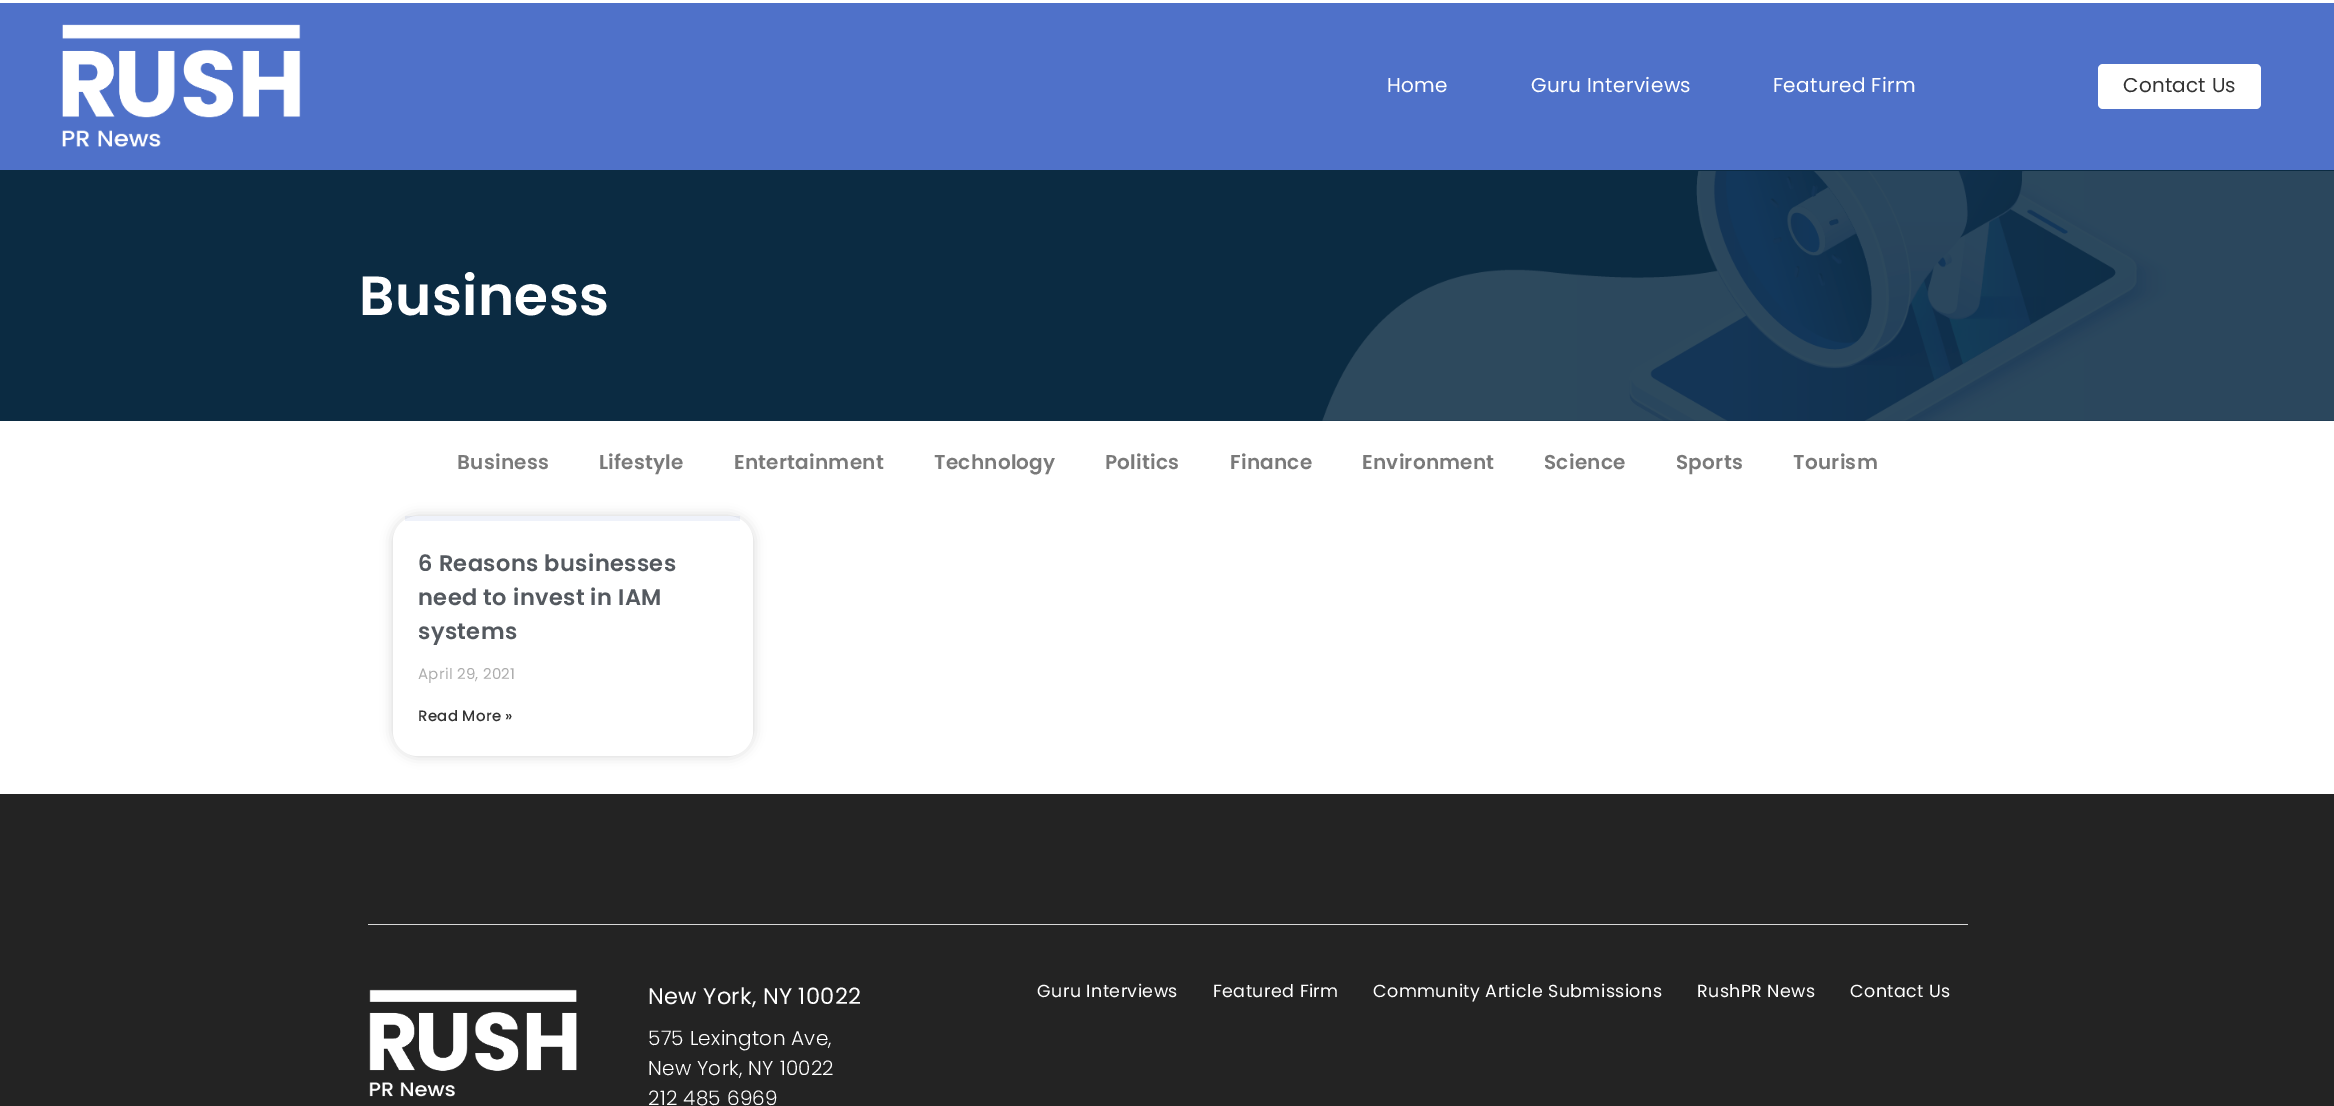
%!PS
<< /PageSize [2334 1106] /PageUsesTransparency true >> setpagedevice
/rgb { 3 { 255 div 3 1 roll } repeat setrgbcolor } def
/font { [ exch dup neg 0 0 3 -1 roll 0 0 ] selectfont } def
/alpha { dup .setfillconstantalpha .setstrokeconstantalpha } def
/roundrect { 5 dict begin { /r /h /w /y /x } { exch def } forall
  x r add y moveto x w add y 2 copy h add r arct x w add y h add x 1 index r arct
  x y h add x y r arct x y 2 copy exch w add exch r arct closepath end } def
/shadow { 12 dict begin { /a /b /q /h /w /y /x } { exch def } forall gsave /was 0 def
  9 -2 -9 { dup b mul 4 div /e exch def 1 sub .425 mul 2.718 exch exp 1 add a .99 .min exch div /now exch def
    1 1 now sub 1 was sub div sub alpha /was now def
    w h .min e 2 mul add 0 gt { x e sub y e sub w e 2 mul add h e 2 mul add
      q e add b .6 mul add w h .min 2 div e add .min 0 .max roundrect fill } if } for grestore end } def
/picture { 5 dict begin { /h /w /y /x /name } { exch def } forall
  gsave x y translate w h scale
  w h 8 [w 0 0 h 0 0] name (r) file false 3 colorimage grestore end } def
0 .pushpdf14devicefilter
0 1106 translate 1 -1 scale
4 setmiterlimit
255 255 255 rgb
0 0 2334 1106 rectfill
79 113 201 rgb
0 3 2334 167 rectfill
(img_01.rgb) 62 24 239 123 picture
255 255 255 rgb
2098 64 163 45 5 roundrect fill
11 43 66 rgb
0 170 2334 251 rectfill
(img_02.rgb) 1322 171 1012 250 picture
0 0 0 rgb
393 516 360 240 25 6 0.17 shadow
255 255 255 rgb
393 516 360 240 25 roundrect fill
0.09 alpha
79 113 201 rgb
405 516 335 5 rectfill
1 alpha
35 35 35 rgb
0 794 2334 312 rectfill
216 216 216 rgb
368 924 1600 1 rectfill
(img_03.rgb) 369 989 208 108 picture
/Poppins-Regular 20 font
255 255 255 rgb
1387 92 moveto 0.4 0 (Home) ashow
1531 92 moveto 0.4 0 (Guru Interviews) ashow
1773 92 moveto 0.4 0 (Featured Firm) ashow
51 51 51 rgb
2123 92 moveto 0.25 0 (Contact Us) ashow
/Poppins-SemiBold 55 font
255 255 255 rgb
359 315 moveto 0.4 0 (Business) ashow
/Poppins-SemiBold 20 font
122 122 122 rgb
457 469 moveto 0.25 0 (Business) ashow
599 469 moveto 0.25 0 (Lifestyle) ashow
734 469 moveto 0.25 0 (Entertainment) ashow
934 469 moveto 0.25 0 (Technology) ashow
1105 469 moveto 0.25 0 (Politics) ashow
1230 469 moveto 0.25 0 (Finance) ashow
1362 469 moveto 0.25 0 (Environment) ashow
1544 469 moveto 0.25 0 (Science) ashow
1676 469 moveto 0.25 0 (Sports) ashow
1793 469 moveto 0.25 0 (Tourism) ashow
/Poppins-SemiBold 22.5 font
84 89 95 rgb
418 571 moveto 0.4 0 (6 Reasons businesses) ashow
418 605 moveto 0.4 0 (need to invest in IAM) ashow
418 639 moveto 0.4 0 (systems) ashow
/Poppins-Regular 15 font
173 173 173 rgb
418 679 moveto 0.25 0 (April 29, 2021) ashow
/Poppins-Medium 15 font
51 51 51 rgb
418 721 moveto 0.25 0 (Read More ») ashow
/Poppins-Regular 22.5 font
255 255 255 rgb
648 1004 moveto 0.25 0 (New York, NY 10022) ashow
/Poppins-Light 20 font
648 1045 moveto 0.25 0 (575 Lexington Ave,) ashow
648 1075 moveto 0.25 0 (New York, NY 10022) ashow
648 1105 moveto 0.25 0 (212 485 6969) ashow
/Poppins-Regular 17.5 font
1037 997 moveto 0.4 0 (Guru Interviews) ashow
1213 997 moveto 0.4 0 (Featured Firm) ashow
1373 997 moveto 0.4 0 (Community Article Submissions) ashow
1697 997 moveto 0.4 0 (RushPR News) ashow
1850 997 moveto 0.4 0 (Contact Us) ashow
.poppdf14devicefilter showpage
